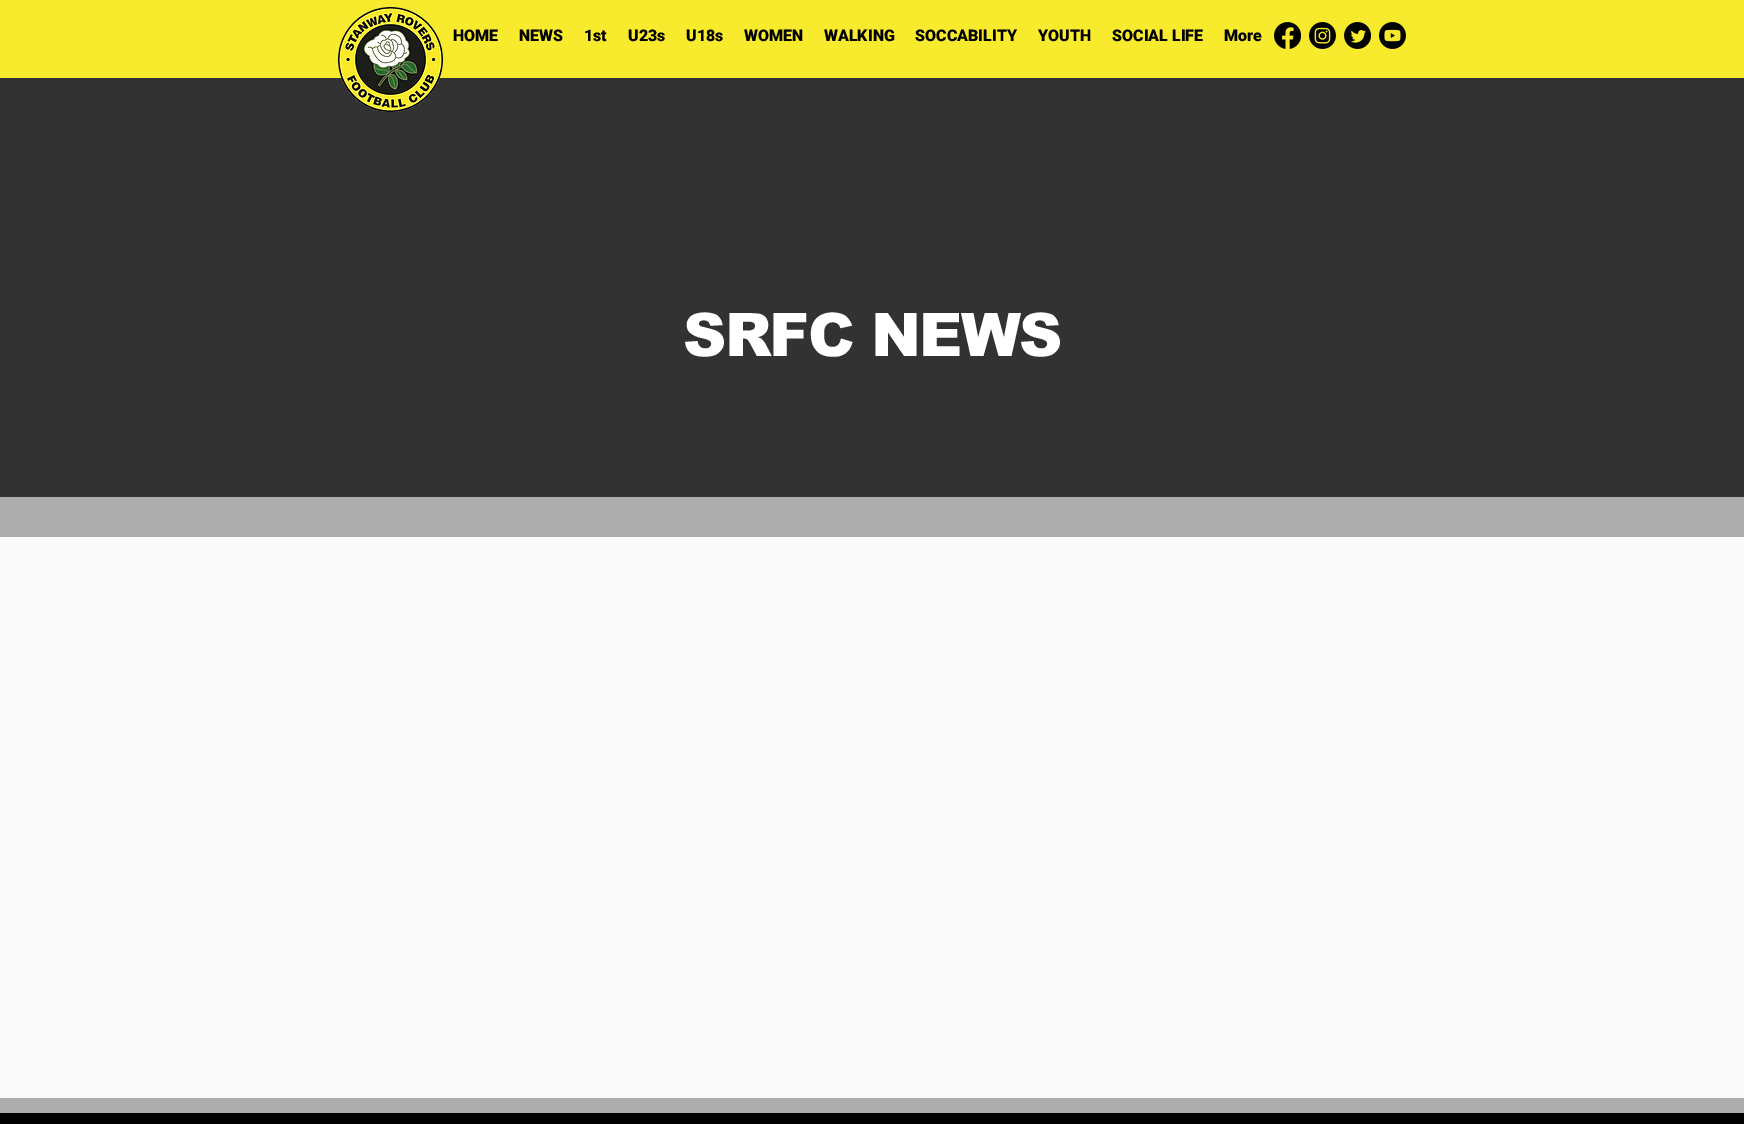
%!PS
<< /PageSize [1744 1124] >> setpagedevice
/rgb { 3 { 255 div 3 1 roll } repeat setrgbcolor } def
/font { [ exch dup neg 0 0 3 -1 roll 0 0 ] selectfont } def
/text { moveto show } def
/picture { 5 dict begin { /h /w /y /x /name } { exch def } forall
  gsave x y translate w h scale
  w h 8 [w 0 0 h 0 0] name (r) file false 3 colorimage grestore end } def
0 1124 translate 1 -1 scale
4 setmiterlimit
50 50 50 rgb
0 0 1744 1124 rectfill
248 234 44 rgb
0 0 1744 78 rectfill
(img_01.rgb) 338 7 105 105 picture
(img_02.rgb) 1274 22 27 27 picture
(img_03.rgb) 1309 22 27 27 picture
(img_04.rgb) 1344 22 27 27 picture
(img_05.rgb) 1379 22 27 27 picture
173 173 173 rgb
0 497 1744 40 rectfill
250 250 250 rgb
0 537 1744 561 rectfill
173 173 173 rgb
0 1098 1744 15 rectfill
0 0 0 rgb
0 1113 1744 11 rectfill
/Roboto-Black 16 font
(HOME) 453 41 text
(NEWS) 519 41 text
(1st) 584 41 text
(U23s) 628 41 text
(U18s) 686 41 text
(WOMEN) 744 41 text
(WALKING) 824 41 text
(SOCCABILITY) 915 41 text
(YOUTH) 1038 41 text
(SOCIAL LIFE) 1112 41 text
(More) 1224 41 text
/arial-Black 60 font
255 255 255 rgb
683 356 moveto -1.75 0 (SRFC NEWS) ashow
showpage
